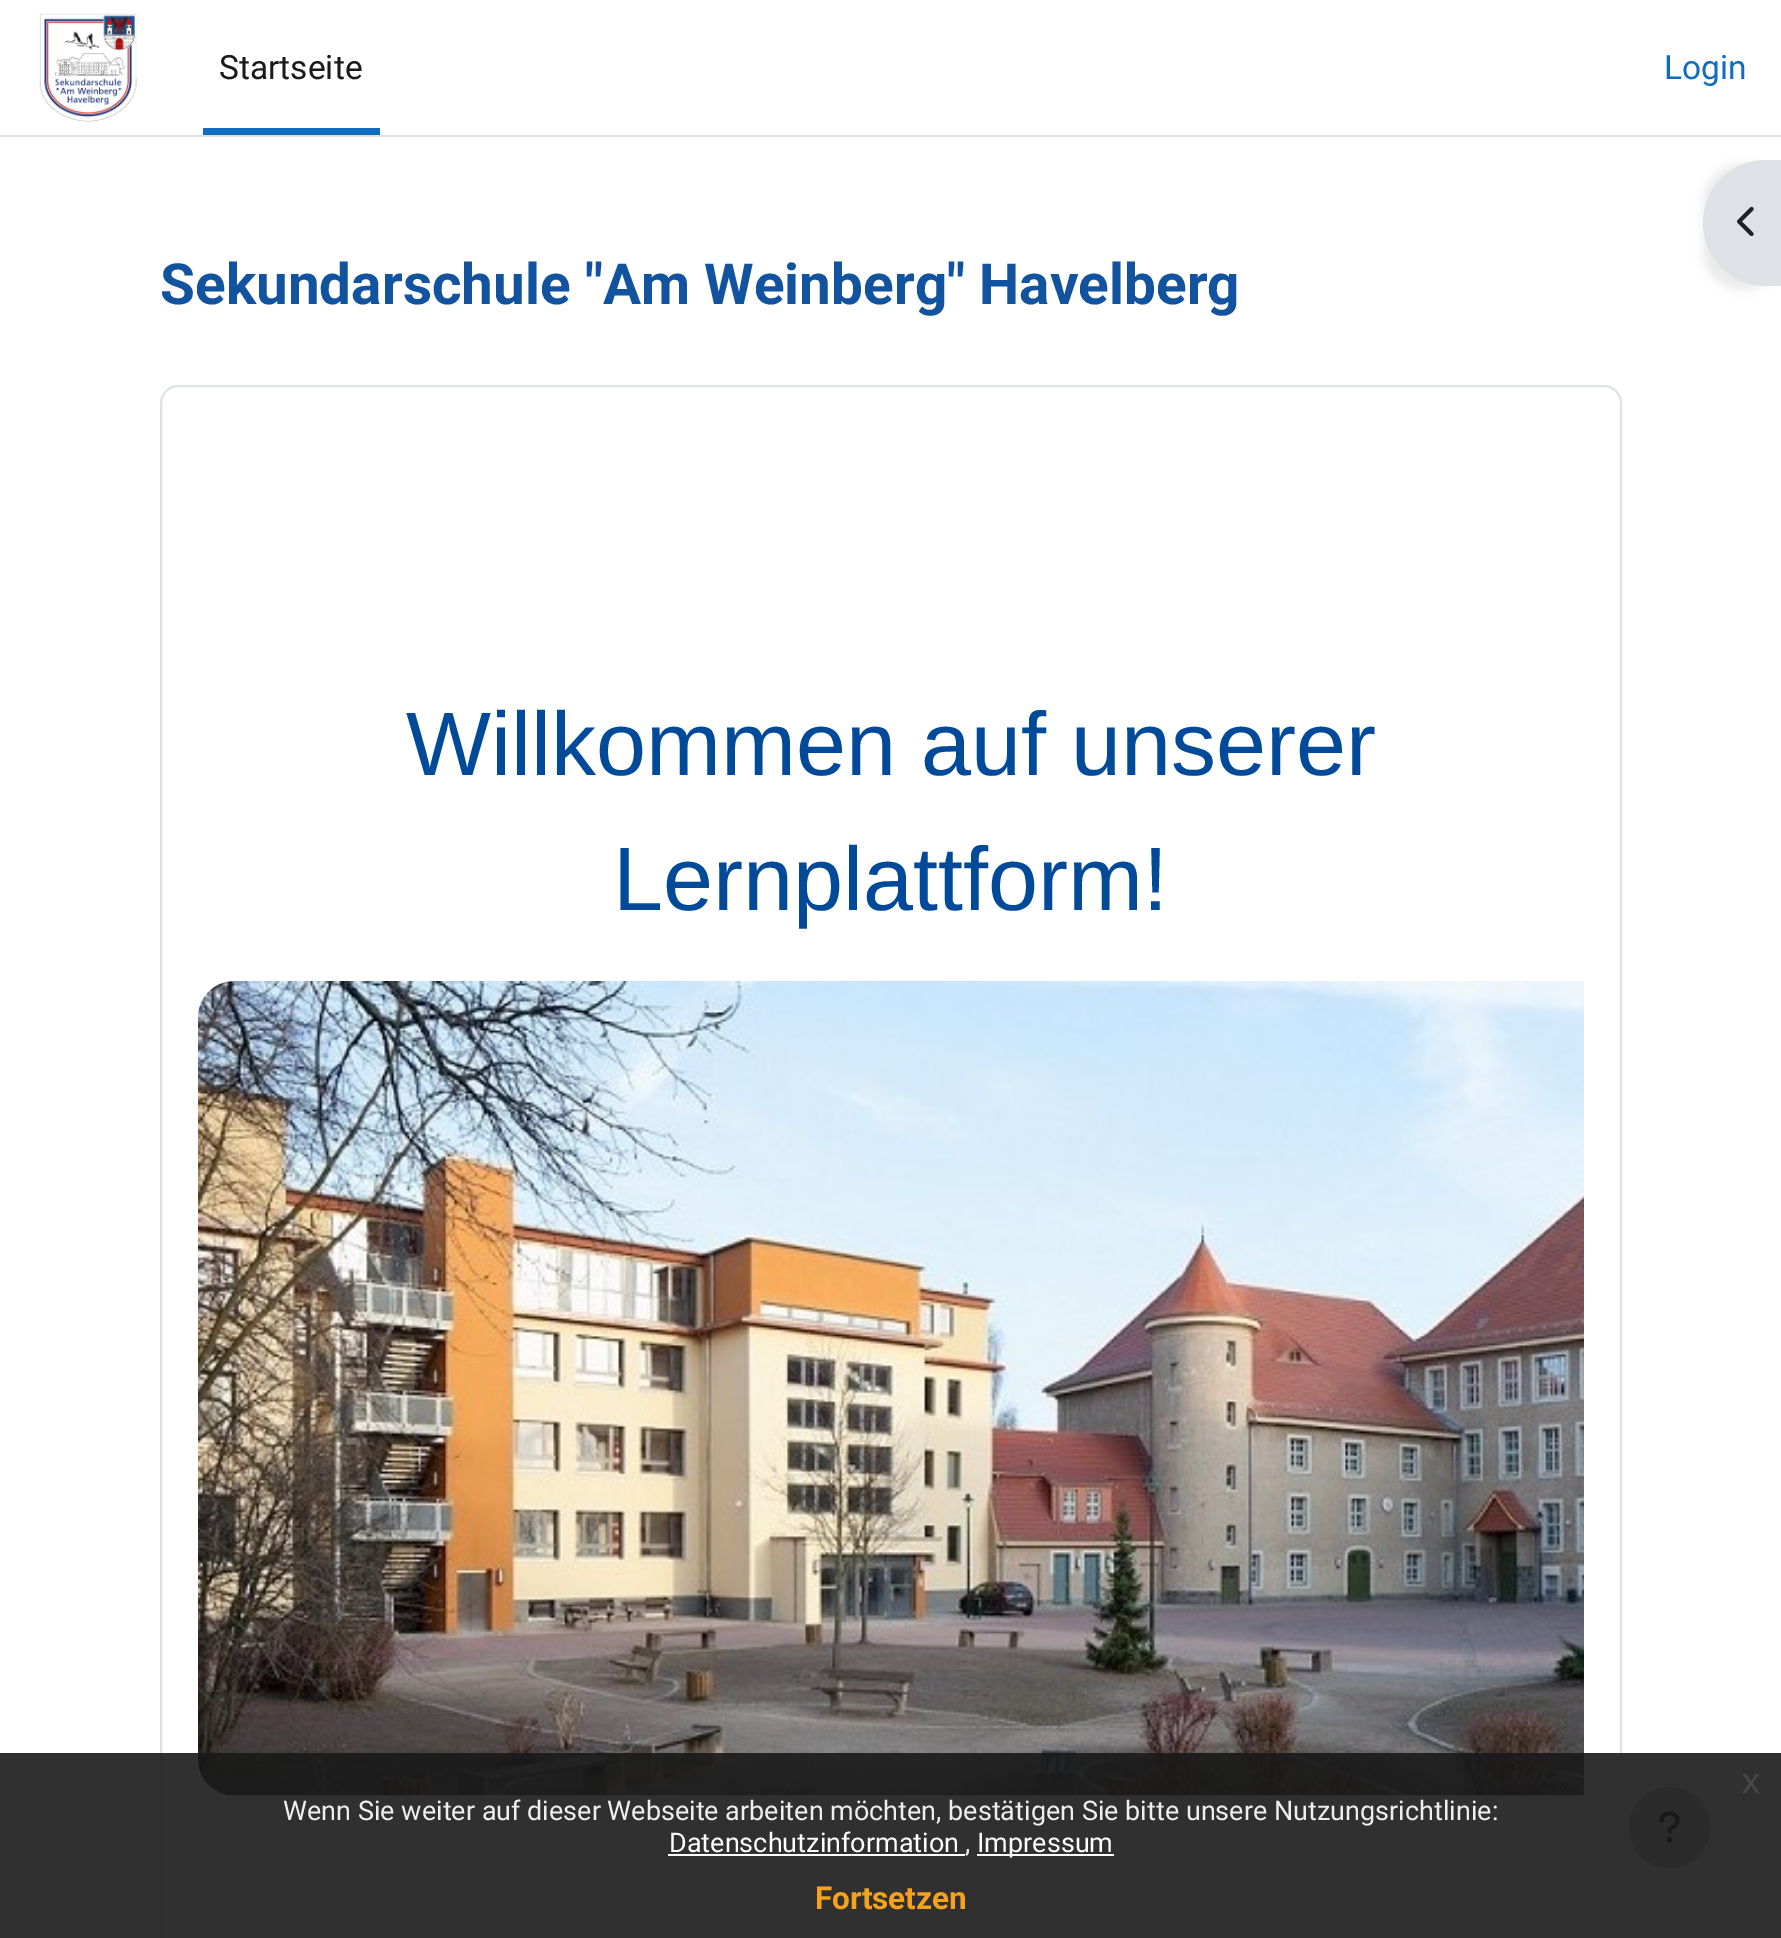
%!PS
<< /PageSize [1781 1938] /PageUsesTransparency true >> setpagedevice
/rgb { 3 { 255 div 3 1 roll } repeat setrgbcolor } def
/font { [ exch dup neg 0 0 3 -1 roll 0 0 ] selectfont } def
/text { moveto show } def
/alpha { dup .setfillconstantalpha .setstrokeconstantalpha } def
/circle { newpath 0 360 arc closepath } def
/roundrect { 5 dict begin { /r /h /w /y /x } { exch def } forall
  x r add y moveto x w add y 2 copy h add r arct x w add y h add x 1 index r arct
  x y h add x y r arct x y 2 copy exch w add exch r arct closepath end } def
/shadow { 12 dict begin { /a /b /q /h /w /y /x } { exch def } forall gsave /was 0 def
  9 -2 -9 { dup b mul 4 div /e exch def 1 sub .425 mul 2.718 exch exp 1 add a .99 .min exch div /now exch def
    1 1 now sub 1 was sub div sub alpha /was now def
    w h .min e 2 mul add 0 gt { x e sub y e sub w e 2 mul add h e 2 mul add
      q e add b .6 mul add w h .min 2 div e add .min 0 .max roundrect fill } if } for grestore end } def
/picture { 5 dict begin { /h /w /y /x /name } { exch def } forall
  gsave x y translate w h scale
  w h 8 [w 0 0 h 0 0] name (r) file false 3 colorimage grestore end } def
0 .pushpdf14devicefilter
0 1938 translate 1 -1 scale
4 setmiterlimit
255 255 255 rgb
0 0 1781 1938 rectfill
222 226 230 rgb
0 135 1781 2 rectfill
(img_01.rgb) 39 13 98 109 picture
15 108 191 rgb
203 128 177 7 rectfill
0 0 0 rgb
1703 164 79 126 63 4.5 0.07 shadow
222 226 230 rgb
1766 160 moveto 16 0 rlineto 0 126 rlineto -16 0 rlineto -35 0 -63 -28 -63 -63 rcurveto 0 -35 28 -63 63 -63 rcurveto closepath fill
(img_02.rgb) 1737 206 17 31 picture
2 setlinewidth
161 386 1460 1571 17 roundrect stroke
(img_03.rgb) 198 981 1386 815 picture
206 212 218 rgb
1669.5 1827.5 40.5 circle fill
(img_04.rgb) 1659 1811 21 32 picture
0.9 alpha
25 25 25 rgb
0 1753 1781 185 rectfill
1 alpha
255 255 255 rgb
668 1854 297 2 rectfill
977 1854 137 2 rectfill
/Roboto-Regular 33.5 font
26 26 26 rgb
(Startseite) 219 79 text
15 108 191 rgb
(Login) 1664 79 text
/Roboto-Bold 56.75 font
17 83 158 rgb
(Sekundarschule "Am Weinberg" Havelberg) 160 304 text
/LiberationSans-Regular 90 font
0 74 153 rgb
(Willkommen auf unserer) 406 775 text
(Lernplattform!) 613 910 text
/LiberationSans-Regular 36 font
71 71 71 rgb
(x) 1742 1793 text
/Roboto-Regular 27 font
239 239 239 rgb
(Wenn Sie weiter auf dieser Webseite arbeiten möchten, bestätigen Sie bitte unsere Nutzungsrichtlinie:) 283 1820 text
255 255 255 rgb
(Datenschutzinformation) 669 1852 text
239 239 239 rgb
(,) 965 1852 text
255 255 255 rgb
(Impressum) 977 1852 text
/Roboto-Bold 31.5 font
246 162 29 rgb
(Fortsetzen) 815 1909 text
.poppdf14devicefilter showpage
